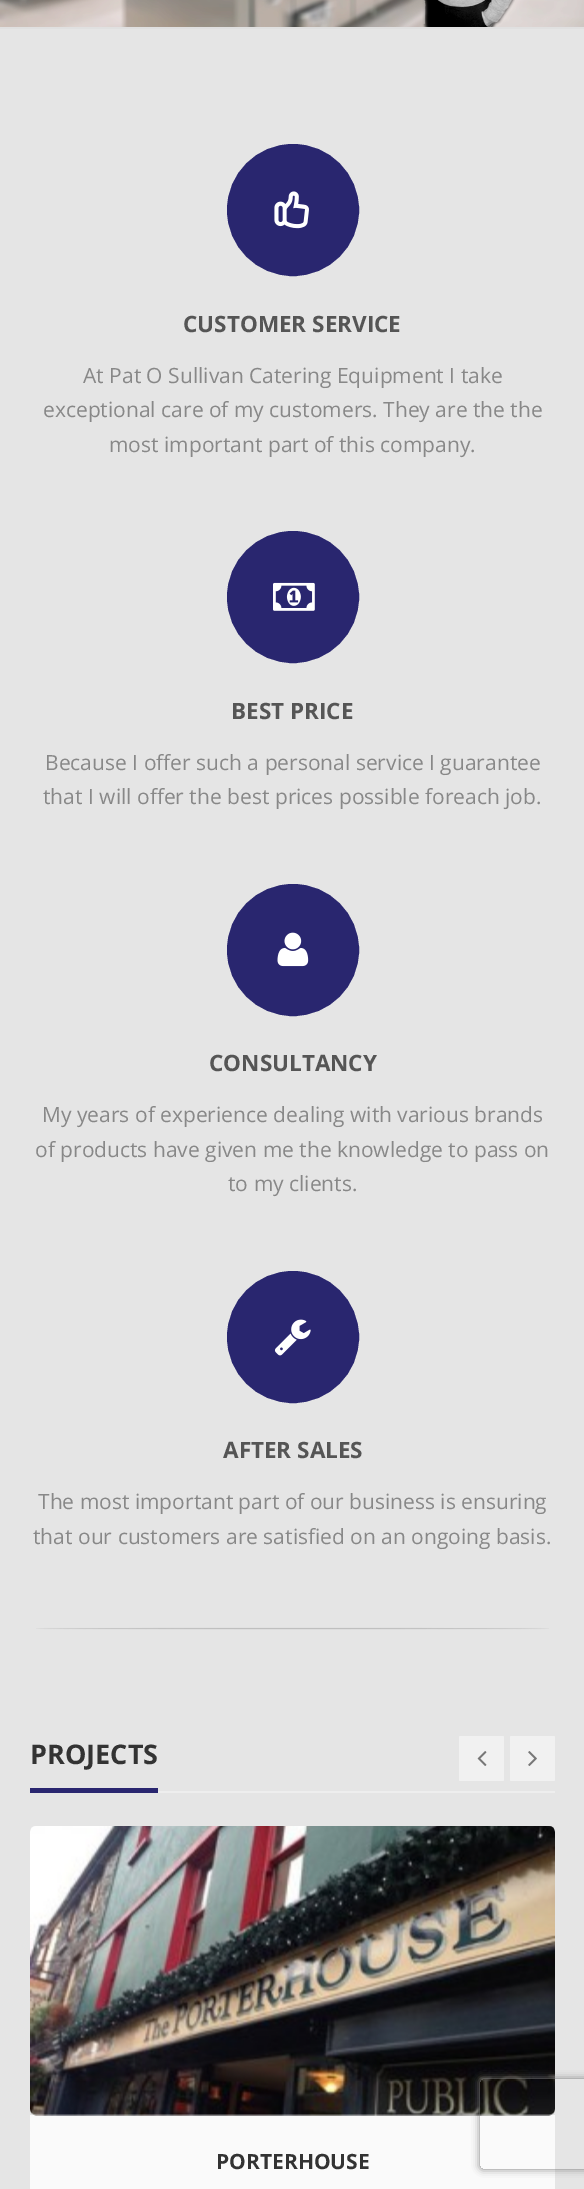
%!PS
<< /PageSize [584 2189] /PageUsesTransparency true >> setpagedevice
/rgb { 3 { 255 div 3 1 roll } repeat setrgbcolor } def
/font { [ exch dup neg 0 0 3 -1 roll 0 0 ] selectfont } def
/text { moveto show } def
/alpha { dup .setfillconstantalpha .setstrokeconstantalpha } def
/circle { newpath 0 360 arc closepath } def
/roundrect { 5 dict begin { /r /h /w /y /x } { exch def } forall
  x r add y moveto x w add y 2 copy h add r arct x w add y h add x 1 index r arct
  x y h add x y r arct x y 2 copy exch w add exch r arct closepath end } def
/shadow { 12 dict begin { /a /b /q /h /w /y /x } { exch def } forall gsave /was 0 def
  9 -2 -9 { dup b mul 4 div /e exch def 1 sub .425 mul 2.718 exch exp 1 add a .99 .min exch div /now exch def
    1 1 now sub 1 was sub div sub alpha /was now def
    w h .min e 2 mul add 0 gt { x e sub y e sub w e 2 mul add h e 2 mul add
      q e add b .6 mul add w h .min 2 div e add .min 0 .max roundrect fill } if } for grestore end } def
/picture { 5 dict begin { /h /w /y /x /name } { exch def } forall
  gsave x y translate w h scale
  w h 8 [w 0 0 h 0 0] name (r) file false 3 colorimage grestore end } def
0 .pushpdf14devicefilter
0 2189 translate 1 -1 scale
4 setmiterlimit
229 229 229 rgb
0 0 584 2189 rectfill
224 224 224 rgb
0 27 584 2 rectfill
(img_01.rgb) 0 0 584 27 picture
(img_02.rgb) 422 0 93 27 picture
41 38 111 rgb
6 setlinewidth
293 210 63 circle stroke
293 210 63 circle fill
(img_03.rgb) 274 191 35 38 picture
293 597 63 circle stroke
293 597 63 circle fill
(img_04.rgb) 273 582 42 29 picture
293 950 63 circle stroke
293 950 63 circle fill
(img_05.rgb) 277 932 32 35 picture
293 1337 63 circle stroke
293 1337 63 circle fill
(img_06.rgb) 274 1319 37 37 picture
(img_07.rgb) 36 1627 513 3 picture
238 238 238 rgb
158 1791 397 2 rectfill
41 38 111 rgb
30 1788 128 5 rectfill
241 241 241 rgb
459 1736 45 45 1.5 roundrect fill
(img_08.rgb) 477 1751 10 15 picture
510 1736 45 45 1.5 roundrect fill
(img_09.rgb) 528 1751 9 15 picture
250 250 250 rgb
30 2115 525 74 rectfill
(img_10.rgb) 30 1826 525 290 picture
gsave
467 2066 moveto 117 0 rlineto 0 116 rlineto -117 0 rlineto closepath 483 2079 moveto 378 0 rlineto 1.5 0 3 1.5 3 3 rcurveto 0 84 rlineto 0 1.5 -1.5 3 -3 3 rcurveto -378 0 rlineto -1.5 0 -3 -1.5 -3 -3 rcurveto 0 -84 rlineto 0 -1.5 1.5 -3 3 -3 rcurveto closepath eoclip newpath
128 128 128 rgb
480 2079 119 90 3 4 1 shadow
grestore
/OpenSans-Bold 22.5 font
85 85 85 rgb
(CUSTOMER SERVICE) 183 332 text
/OpenSans-Regular 21 font
136 136 136 rgb
(At Pat O Sullivan Catering Equipment I take) 83 383 text
(exceptional care of my customers. They are the the) 43 417 text
(most important part of this company.) 109 452 text
/OpenSans-Bold 22.5 font
85 85 85 rgb
(BEST PRICE) 231 719 text
/OpenSans-Regular 21 font
136 136 136 rgb
(Because I offer such a personal service I guarantee) 45 770 text
(that I will offer the best prices possible foreach job.) 43 804 text
/OpenSans-Bold 22.5 font
85 85 85 rgb
(CONSULTANCY) 209 1071 text
/OpenSans-Regular 21 font
136 136 136 rgb
(My years of experience dealing with various brands) 42 1122 text
(of products have given me the knowledge to pass on) 35 1157 text
(to my clients.) 228 1191 text
/OpenSans-Bold 22.5 font
85 85 85 rgb
(AFTER SALES) 223 1458 text
/OpenSans-Regular 21 font
136 136 136 rgb
(The most important part of our business is ensuring) 38 1509 text
(that our customers are satisfied on an ongoing basis.) 33 1544 text
/OpenSans-Bold 27 font
51 51 51 rgb
(PROJECTS) 30 1764 text
/OpenSans-Bold 21 font
(PORTERHOUSE) 216 2169 text
.poppdf14devicefilter showpage
